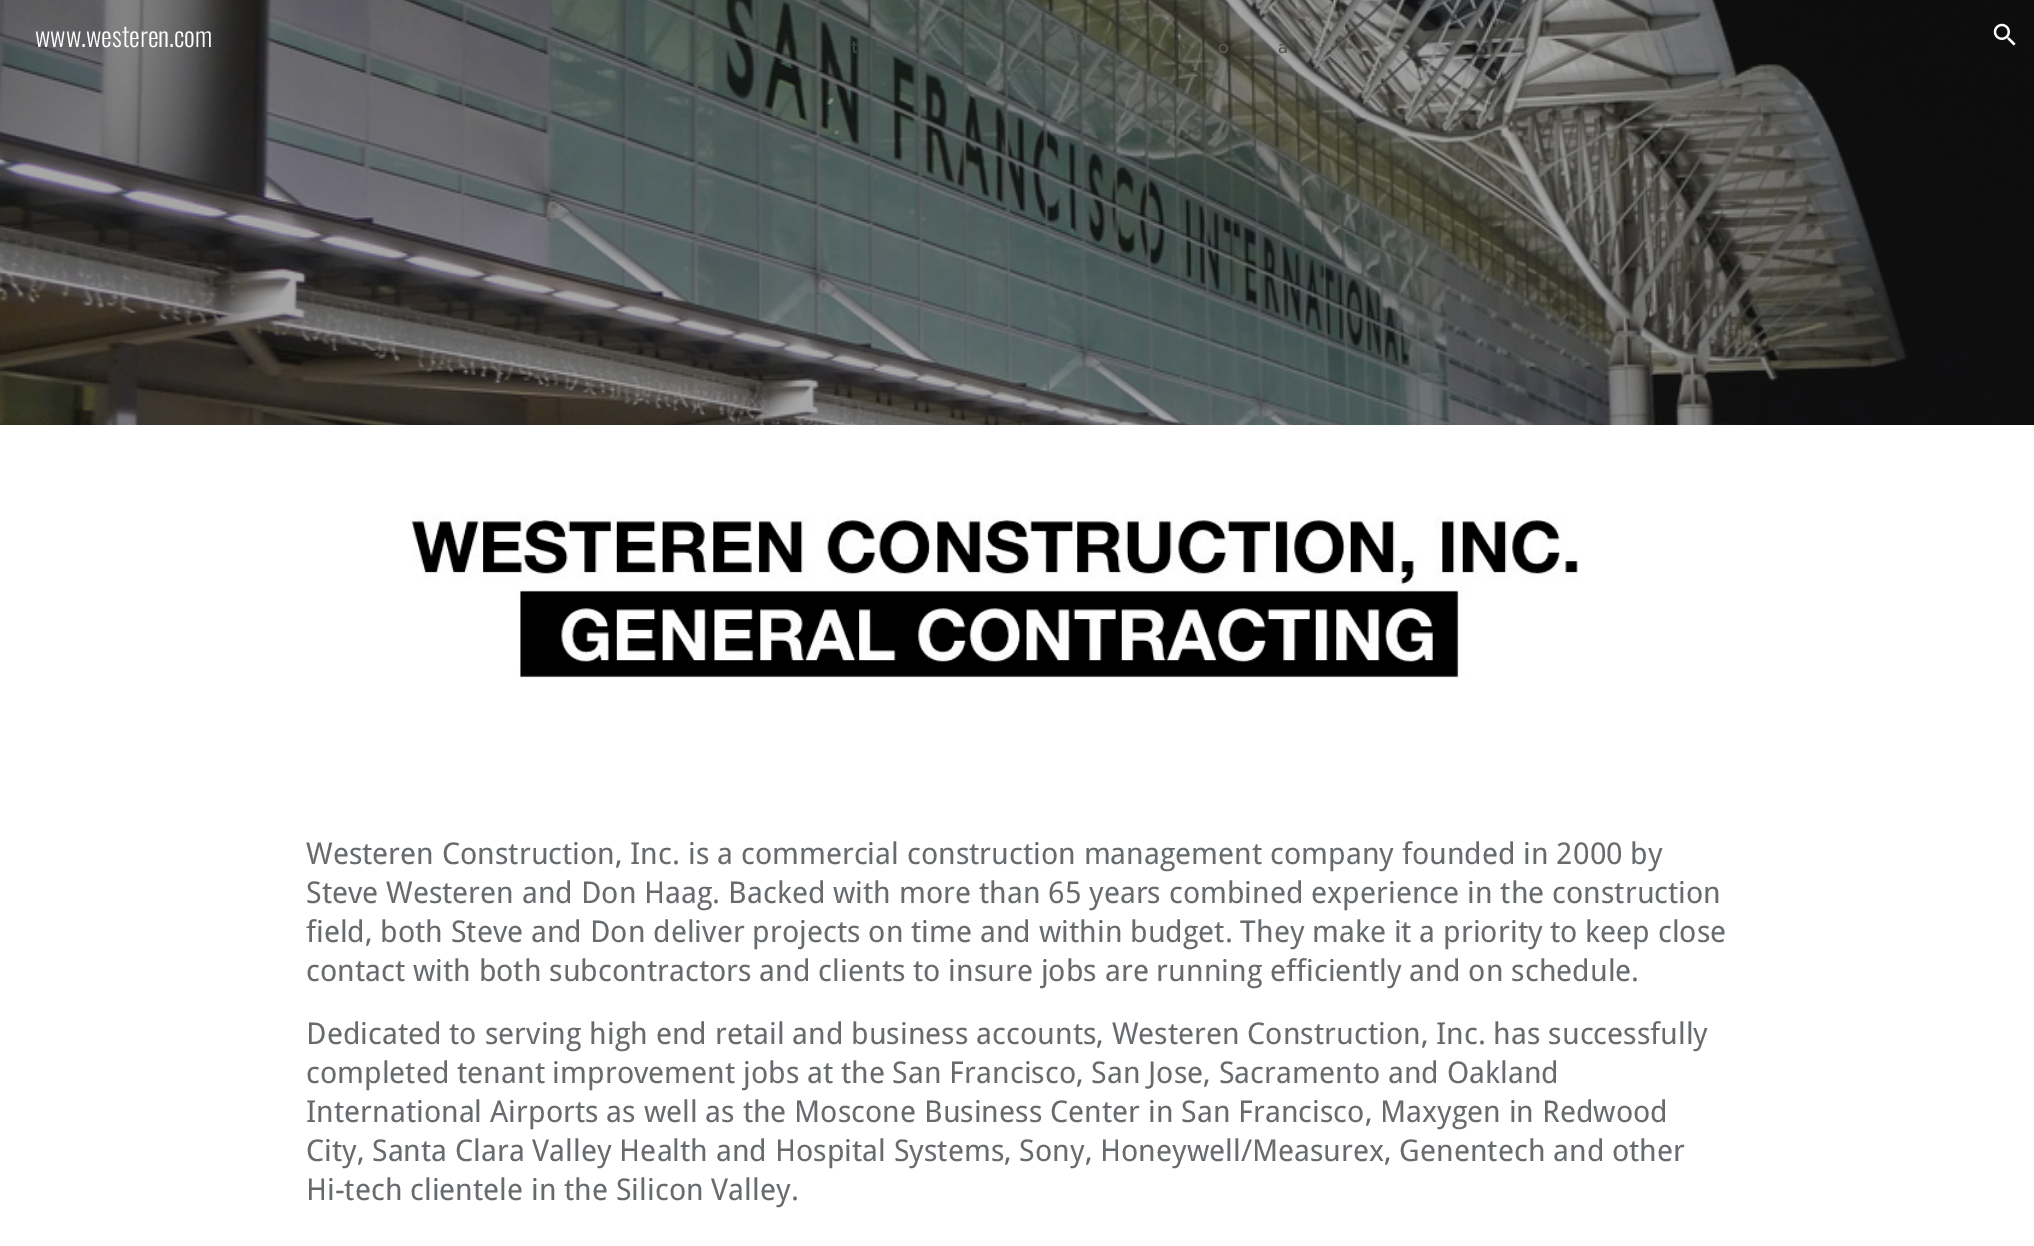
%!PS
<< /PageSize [2034 1246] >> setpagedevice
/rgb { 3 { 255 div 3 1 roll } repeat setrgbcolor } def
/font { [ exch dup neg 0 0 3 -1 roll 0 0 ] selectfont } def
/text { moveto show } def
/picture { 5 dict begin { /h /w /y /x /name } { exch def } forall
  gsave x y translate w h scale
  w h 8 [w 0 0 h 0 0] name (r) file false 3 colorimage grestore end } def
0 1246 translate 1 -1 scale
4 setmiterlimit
255 255 255 rgb
0 0 2034 1246 rectfill
(img_02.rgb) 0 0 2034 425 picture
(img_01.rgb) 1993 23 23 23 picture
(img_03.rgb) 411 513 1167 165 picture
/Oswald-Light 26.75 font
(www.westeren.com) 35 47 text
/DroidSans-Regular 30 font
104 107 110 rgb
(Westeren Construction, Inc. is a commercial construction management company founded in 2000 by) 306 864 text
(Steve Westeren and Don Haag. Backed with more than 65 years combined experience in the construction) 306 903 text
(field, both Steve and Don deliver projects on time and within budget. They make it a priority to keep close) 306 942 text
(contact with both subcontractors and clients to insure jobs are running efficiently and on schedule.) 306 981 text
(Dedicated to serving high end retail and business accounts, Westeren Construction, Inc. has successfully) 306 1044 text
(completed tenant improvement jobs at the San Francisco, San Jose, Sacramento and Oakland) 306 1083 text
(International Airports as well as the Moscone Business Center in San Francisco, Maxygen in Redwood) 306 1122 text
(City, Santa Clara Valley Health and Hospital Systems, Sony, Honeywell/Measurex, Genentech and other) 306 1161 text
(Hi-tech clientele in the Silicon Valley.) 306 1200 text
/GoogleSans-Medium 18 font
56 66 62 rgb
(t) 851 53 text
88 89 80 rgb
(o) 1218 53 text
(a) 1278 53 text
showpage
